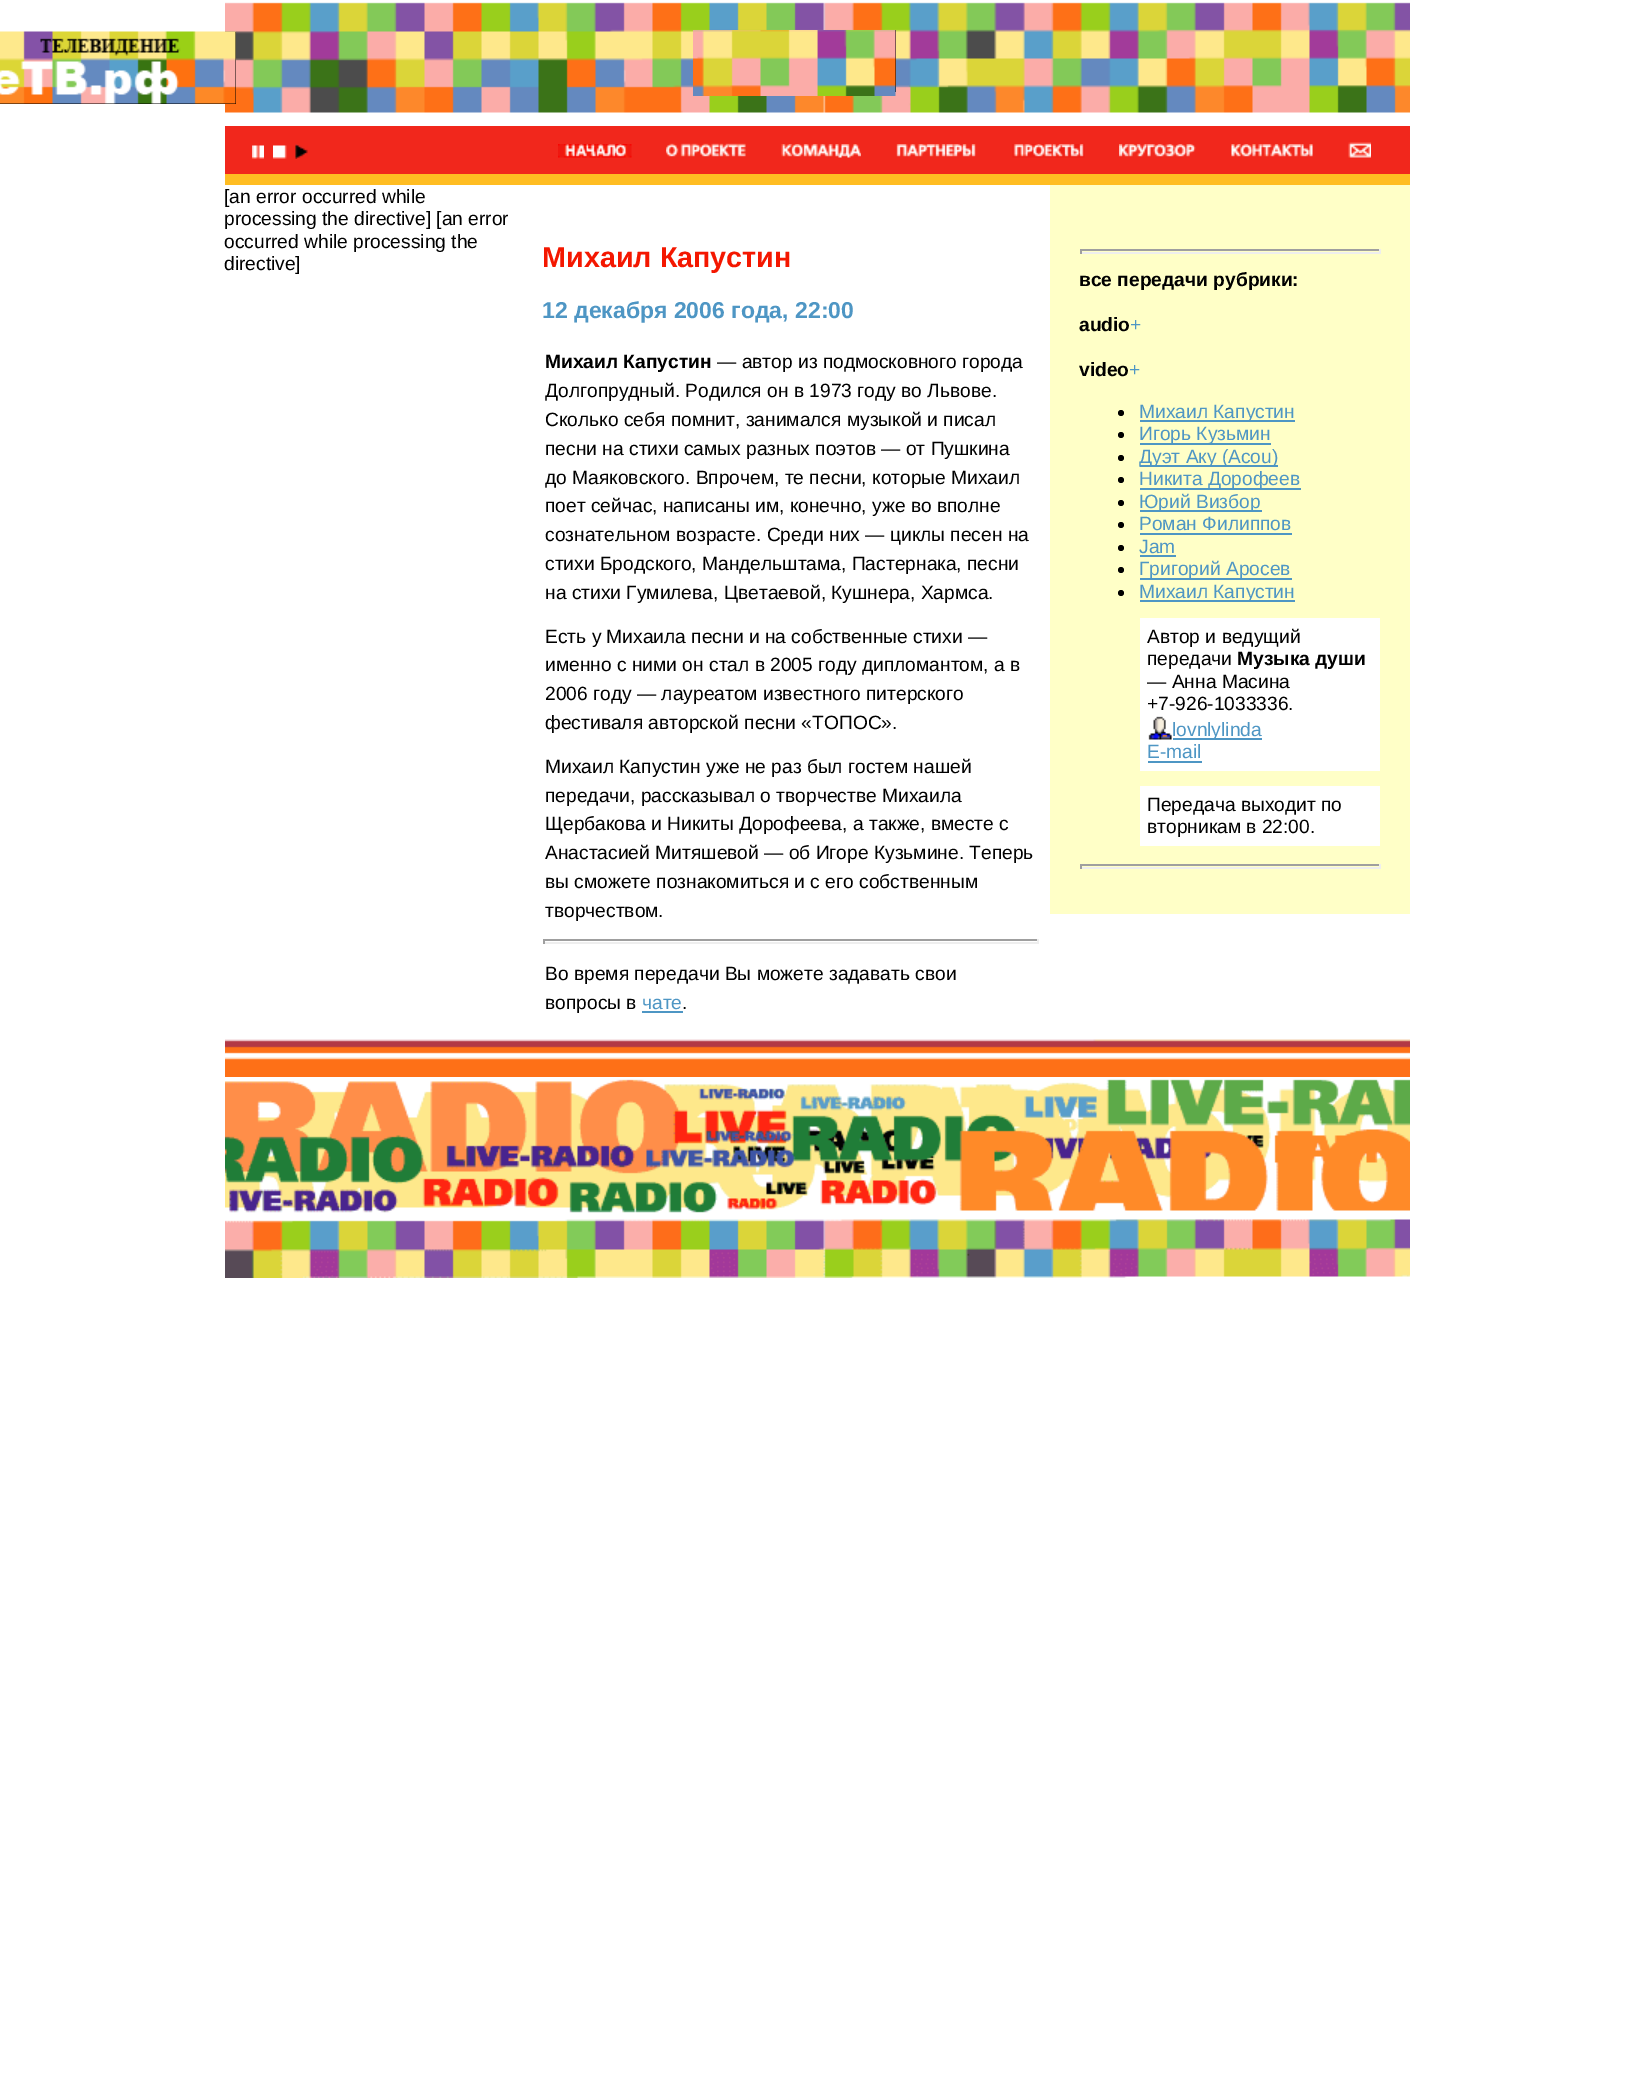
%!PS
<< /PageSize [1633 2075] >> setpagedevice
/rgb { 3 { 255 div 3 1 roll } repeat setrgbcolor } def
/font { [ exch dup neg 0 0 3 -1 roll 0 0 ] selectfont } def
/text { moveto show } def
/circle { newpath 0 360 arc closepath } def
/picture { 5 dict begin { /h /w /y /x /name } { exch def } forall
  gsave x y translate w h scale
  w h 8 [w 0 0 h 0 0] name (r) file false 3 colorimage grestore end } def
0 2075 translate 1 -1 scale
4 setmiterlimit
255 255 255 rgb
0 0 1633 2075 rectfill
(img_01.rgb) 225 2 1185 111 picture
0 0 0 rgb
0 32 236 72 rectfill
(img_02.rgb) 0 31 236 73 picture
895 30 1 62 rectfill
(img_03.rgb) 693 30 203 66 picture
241 39 28 rgb
225 126 1185 48 rectfill
255 189 34 rgb
225 174 1185 11 rectfill
(img_04.rgb) 252 145 12 14 picture
(img_05.rgb) 273 145 14 14 picture
(img_06.rgb) 295 144 13 15 picture
(img_07.rgb) 558 144 74 14 picture
(img_08.rgb) 666 143 80 14 picture
(img_09.rgb) 781 144 80 14 picture
(img_10.rgb) 896 144 80 13 picture
(img_11.rgb) 1012 144 73 14 picture
(img_12.rgb) 1119 144 77 13 picture
(img_13.rgb) 1231 144 82 13 picture
(img_14.rgb) 1348 142 23 16 picture
159 159 159 rgb
543 939 495 2 rectfill
238 238 238 rgb
1037 939 2 5 rectfill
543 942 495 2 rectfill
159 159 159 rgb
543 939 2 5 rectfill
78 150 196 rgb
642 1011 41 2 rectfill
255 255 199 rgb
1050 185 360 729 rectfill
159 159 159 rgb
1080 249 300 2 rectfill
238 238 238 rgb
1379 249 2 5 rectfill
1080 252 300 2 rectfill
159 159 159 rgb
1080 249 2 5 rectfill
0 0 0 rgb
1121 413 3 circle fill
78 150 196 rgb
1140 420 155 2 rectfill
0 0 0 rgb
1121 435 3 circle fill
78 150 196 rgb
1140 443 131 2 rectfill
0 0 0 rgb
1121 458 3 circle fill
78 150 196 rgb
1140 465 138 2 rectfill
0 0 0 rgb
1121 480 3 circle fill
78 150 196 rgb
1140 488 161 2 rectfill
0 0 0 rgb
1121 503 3 circle fill
78 150 196 rgb
1140 510 122 2 rectfill
0 0 0 rgb
1121 525 3 circle fill
78 150 196 rgb
1140 533 152 2 rectfill
0 0 0 rgb
1121 548 3 circle fill
78 150 196 rgb
1140 555 36 2 rectfill
0 0 0 rgb
1121 570 3 circle fill
78 150 196 rgb
1140 578 152 2 rectfill
0 0 0 rgb
1121 593 3 circle fill
78 150 196 rgb
1140 600 155 2 rectfill
255 255 255 rgb
1140 618 240 153 rectfill
(img_15.rgb) 1148 716 24 24 picture
78 150 196 rgb
1173 738 89 2 rectfill
1148 761 54 2 rectfill
255 255 255 rgb
1140 786 240 60 rectfill
159 159 159 rgb
1080 864 300 2 rectfill
238 238 238 rgb
1379 864 2 5 rectfill
1080 867 300 2 rectfill
159 159 159 rgb
1080 864 2 5 rectfill
254 112 23 rgb
225 1060 1185 17 rectfill
(img_16.rgb) 225 1039 1185 21 picture
(img_17.rgb) 225 1079 1185 199 picture
/LiberationSans-Regular 19.2 font
0 0 0 rgb
([an error occurred while) 224 203 text
(processing the directive] [an error) 224 225 text
(occurred while processing the) 224 248 text
(directive]) 224 270 text
/LiberationSans-Bold 28.75 font
244 23 0 rgb
(Михаил Капустин) 542 267 text
/LiberationSans-Bold 23 font
78 150 196 rgb
(12 декабря 2006 года, 22:00) 542 318 text
/LiberationSans-Bold 19.2 font
0 0 0 rgb
(Михаил Капустин) 545 368 text
/LiberationSans-Regular 19.2 font
(— автор из подмосковного города) 717 368 text
(Долгопрудный. Родился он в 1973 году во Львове.) 545 397 text
(Сколько себя помнит, занимался музыкой и писал) 545 426 text
(песни на стихи самых разных поэтов — от Пушкина) 545 455 text
(до Маяковского. Впрочем, те песни, которые Михаил) 545 484 text
(поет сейчас, написаны им, конечно, уже во вполне) 545 512 text
(сознательном возрасте. Среди них — циклы песен на) 545 541 text
(стихи Бродского, Мандельштама, Пастернака, песни) 545 570 text
(на стихи Гумилева, Цветаевой, Кушнера, Хармса.) 545 599 text
(Есть у Михаила песни и на собственные стихи —) 545 643 text
(именно с ними он стал в 2005 году дипломантом, а в) 545 671 text
(2006 году — лауреатом известного питерского) 545 700 text
(фестиваля авторской песни «ТОПОС».) 545 729 text
(Михаил Капустин уже не раз был гостем нашей) 545 773 text
(передачи, рассказывал о творчестве Михаила) 545 802 text
(Щербакова и Никиты Дорофеева, а также, вместе с) 545 830 text
(Анастасией Митяшевой — об Игоре Кузьмине. Теперь) 545 859 text
(вы сможете познакомиться и с его собственным) 545 888 text
(творчеством.) 545 917 text
(Во время передачи Вы можете задавать свои) 545 980 text
(вопросы в) 545 1009 text
78 150 196 rgb
(чате) 642 1009 text
0 0 0 rgb
(.) 682 1009 text
/LiberationSans-Bold 19.2 font
(все передачи рубрики:) 1079 286 text
(audio) 1079 331 text
/LiberationSans-Regular 19.2 font
78 150 196 rgb
(+) 1130 331 text
/LiberationSans-Bold 19.2 font
0 0 0 rgb
(video) 1079 376 text
/LiberationSans-Regular 19.2 font
78 150 196 rgb
(+) 1129 376 text
(Михаил Капустин) 1139 418 text
(Игорь Кузьмин) 1139 440 text
(Дуэт Аку \(Acou\)) 1139 463 text
(Никита Дорофеев) 1139 485 text
(Юрий Визбор) 1139 508 text
(Роман Филиппов) 1139 530 text
(Jam) 1139 553 text
(Григорий Аросев) 1139 575 text
(Михаил Капустин) 1139 598 text
0 0 0 rgb
(Автор и ведущий) 1147 643 text
(передачи) 1147 665 text
/LiberationSans-Bold 19.2 font
(Музыка души) 1237 665 text
/LiberationSans-Regular 19.2 font
(— Анна Масина) 1147 688 text
(+7-926-1033336.) 1147 710 text
78 150 196 rgb
(lovnlylinda) 1172 736 text
(E-mail) 1147 758 text
0 0 0 rgb
(Передача выходит по) 1147 811 text
(вторникам в 22:00.) 1147 833 text
showpage
